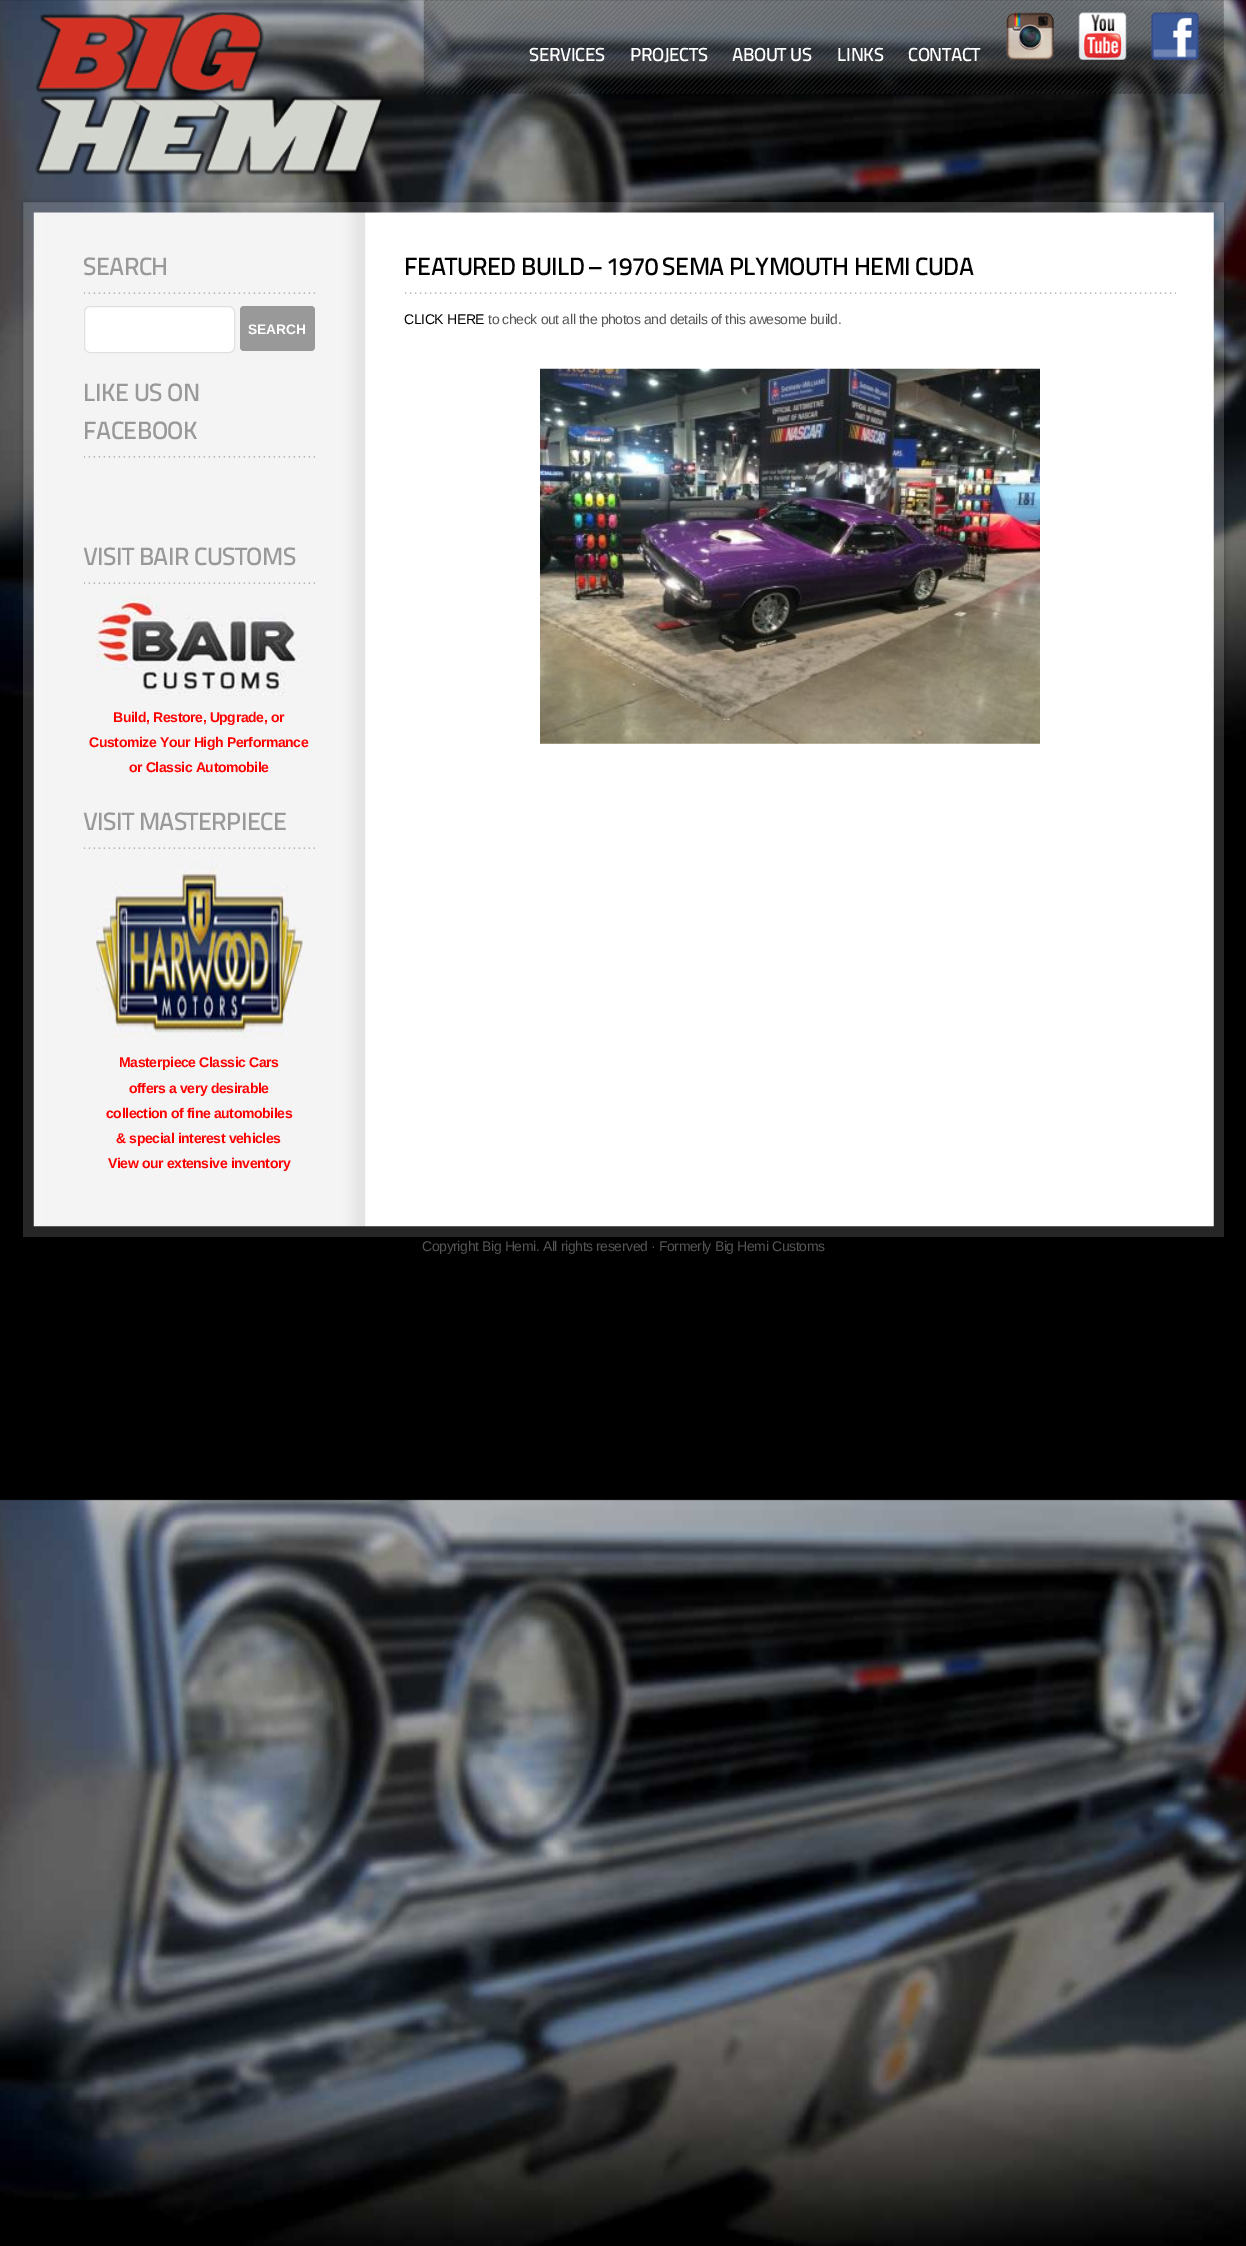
%!PS
<< /PageSize [1246 2246] /PageUsesTransparency true >> setpagedevice
/rgb { 3 { 255 div 3 1 roll } repeat setrgbcolor } def
/font { [ exch dup neg 0 0 3 -1 roll 0 0 ] selectfont } def
/text { moveto show } def
/alpha { dup .setfillconstantalpha .setstrokeconstantalpha } def
/roundrect { 5 dict begin { /r /h /w /y /x } { exch def } forall
  x r add y moveto x w add y 2 copy h add r arct x w add y h add x 1 index r arct
  x y h add x y r arct x y 2 copy exch w add exch r arct closepath end } def
/shadow { 12 dict begin { /a /b /q /h /w /y /x } { exch def } forall gsave /was 0 def
  9 -2 -9 { dup b mul 4 div /e exch def 1 sub .425 mul 2.718 exch exp 1 add a .99 .min exch div /now exch def
    1 1 now sub 1 was sub div sub alpha /was now def
    w h .min e 2 mul add 0 gt { x e sub y e sub w e 2 mul add h e 2 mul add
      q e add b .6 mul add w h .min 2 div e add .min 0 .max roundrect fill } if } for grestore end } def
/picture { 5 dict begin { /h /w /y /x /name } { exch def } forall
  gsave x y translate w h scale
  w h 8 [w 0 0 h 0 0] name (r) file false 3 colorimage grestore end } def
0 .pushpdf14devicefilter
0 2246 translate 1 -1 scale
4 setmiterlimit
255 255 255 rgb
0 0 1246 2246 rectfill
(img_01.rgb) 0 0 1246 2246 picture
(img_02.rgb) 35 12 349 163 picture
(img_03.rgb) 423 0 801 94 picture
(img_04.rgb) 1006 12 48 48 picture
(img_05.rgb) 1078 12 49 48 picture
(img_06.rgb) 1151 12 48 48 picture
gsave
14 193 moveto 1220 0 rlineto 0 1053 rlineto -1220 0 rlineto closepath 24 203 moveto 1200 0 rlineto 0 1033 rlineto -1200 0 rlineto closepath eoclip newpath
0 0 0 rgb
24 203 1200 1033 0 3 0.3 shadow
grestore
0.15 alpha
23 202 1201 1035 rectfill
1 alpha
(img_07.rgb) 33 212 1181 1015 picture
(img_08.rgb) 83 292 232 2 picture
84.5 306.5 150 46 5.5 roundrect gsave fill grestore
224 224 224 rgb
stroke
153 153 153 rgb
240 306 75 45 4 roundrect fill
(img_09.rgb) 83 456 232 2 picture
(img_08.rgb) 83 582 232 2 picture
(img_10.rgb) 96 596 207 100 picture
(img_08.rgb) 83 847 232 2 picture
(img_11.rgb) 96 861 207 177 picture
(img_12.rgb) 405 292 772 2 picture
(img_13.rgb) 540 368 500 376 picture
/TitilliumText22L-Medium 18.75 font
255 255 255 rgb
529 61 moveto -0.38 0 (SERVICES) ashow
630 61 moveto -0.38 0 (PROJECTS) ashow
732 61 moveto -0.38 0 (ABOUT US) ashow
837 61 moveto -0.38 0 (LINKS) ashow
908 61 moveto -0.38 0 (CONTACT) ashow
/TitilliumText22L-Medium 25 font
153 153 153 rgb
83 275 moveto -0.6 0 (SEARCH) ashow
/LiberationSans-Bold 13.75 font
255 255 255 rgb
(SEARCH) 248 334 text
/TitilliumText22L-Medium 25 font
153 153 153 rgb
83 401 moveto -0.6 0 (LIKE US ON) ashow
83 439 moveto -0.6 0 (FACEBOOK) ashow
83 565 moveto -0.6 0 (VISIT BAIR CUSTOMS) ashow
/LiberationSans-Bold 14 font
255 0 0 rgb
113 722 moveto -0.38 0 (Build, Restore, Upgrade, or) ashow
89 747 moveto -0.38 0 (Customize Your High Performance) ashow
129 772 moveto -0.38 0 (or Classic Automobile) ashow
/TitilliumText22L-Medium 25 font
153 153 153 rgb
83 830 moveto -0.6 0 (VISIT MASTERPIECE) ashow
/LiberationSans-Bold 14 font
255 0 0 rgb
119 1067 moveto -0.38 0 (Masterpiece Classic Cars) ashow
129 1093 moveto -0.38 0 (offers a very desirable) ashow
106 1118 moveto -0.38 0 (collection of fine automobiles) ashow
116 1143 moveto -0.38 0 (& special interest vehicles) ashow
108 1168 moveto -0.38 0 (View our extensive inventory) ashow
/TitilliumText22L-Medium 25 font
0 0 0 rgb
404 275 moveto -0.6 0 (FEATURED BUILD – 1970 SEMA PLYMOUTH HEMI CUDA) ashow
/LiberationSans-Regular 14 font
404 324 moveto -0.38 0 (CLICK HERE) ashow
85 85 85 rgb
488 324 moveto -0.38 0 (to check out all the photos and details of this awesome build.) ashow
422 1251 moveto -0.38 0 (Copyright Big Hemi. All rights reserved · Formerly Big Hemi Customs) ashow
.poppdf14devicefilter showpage
